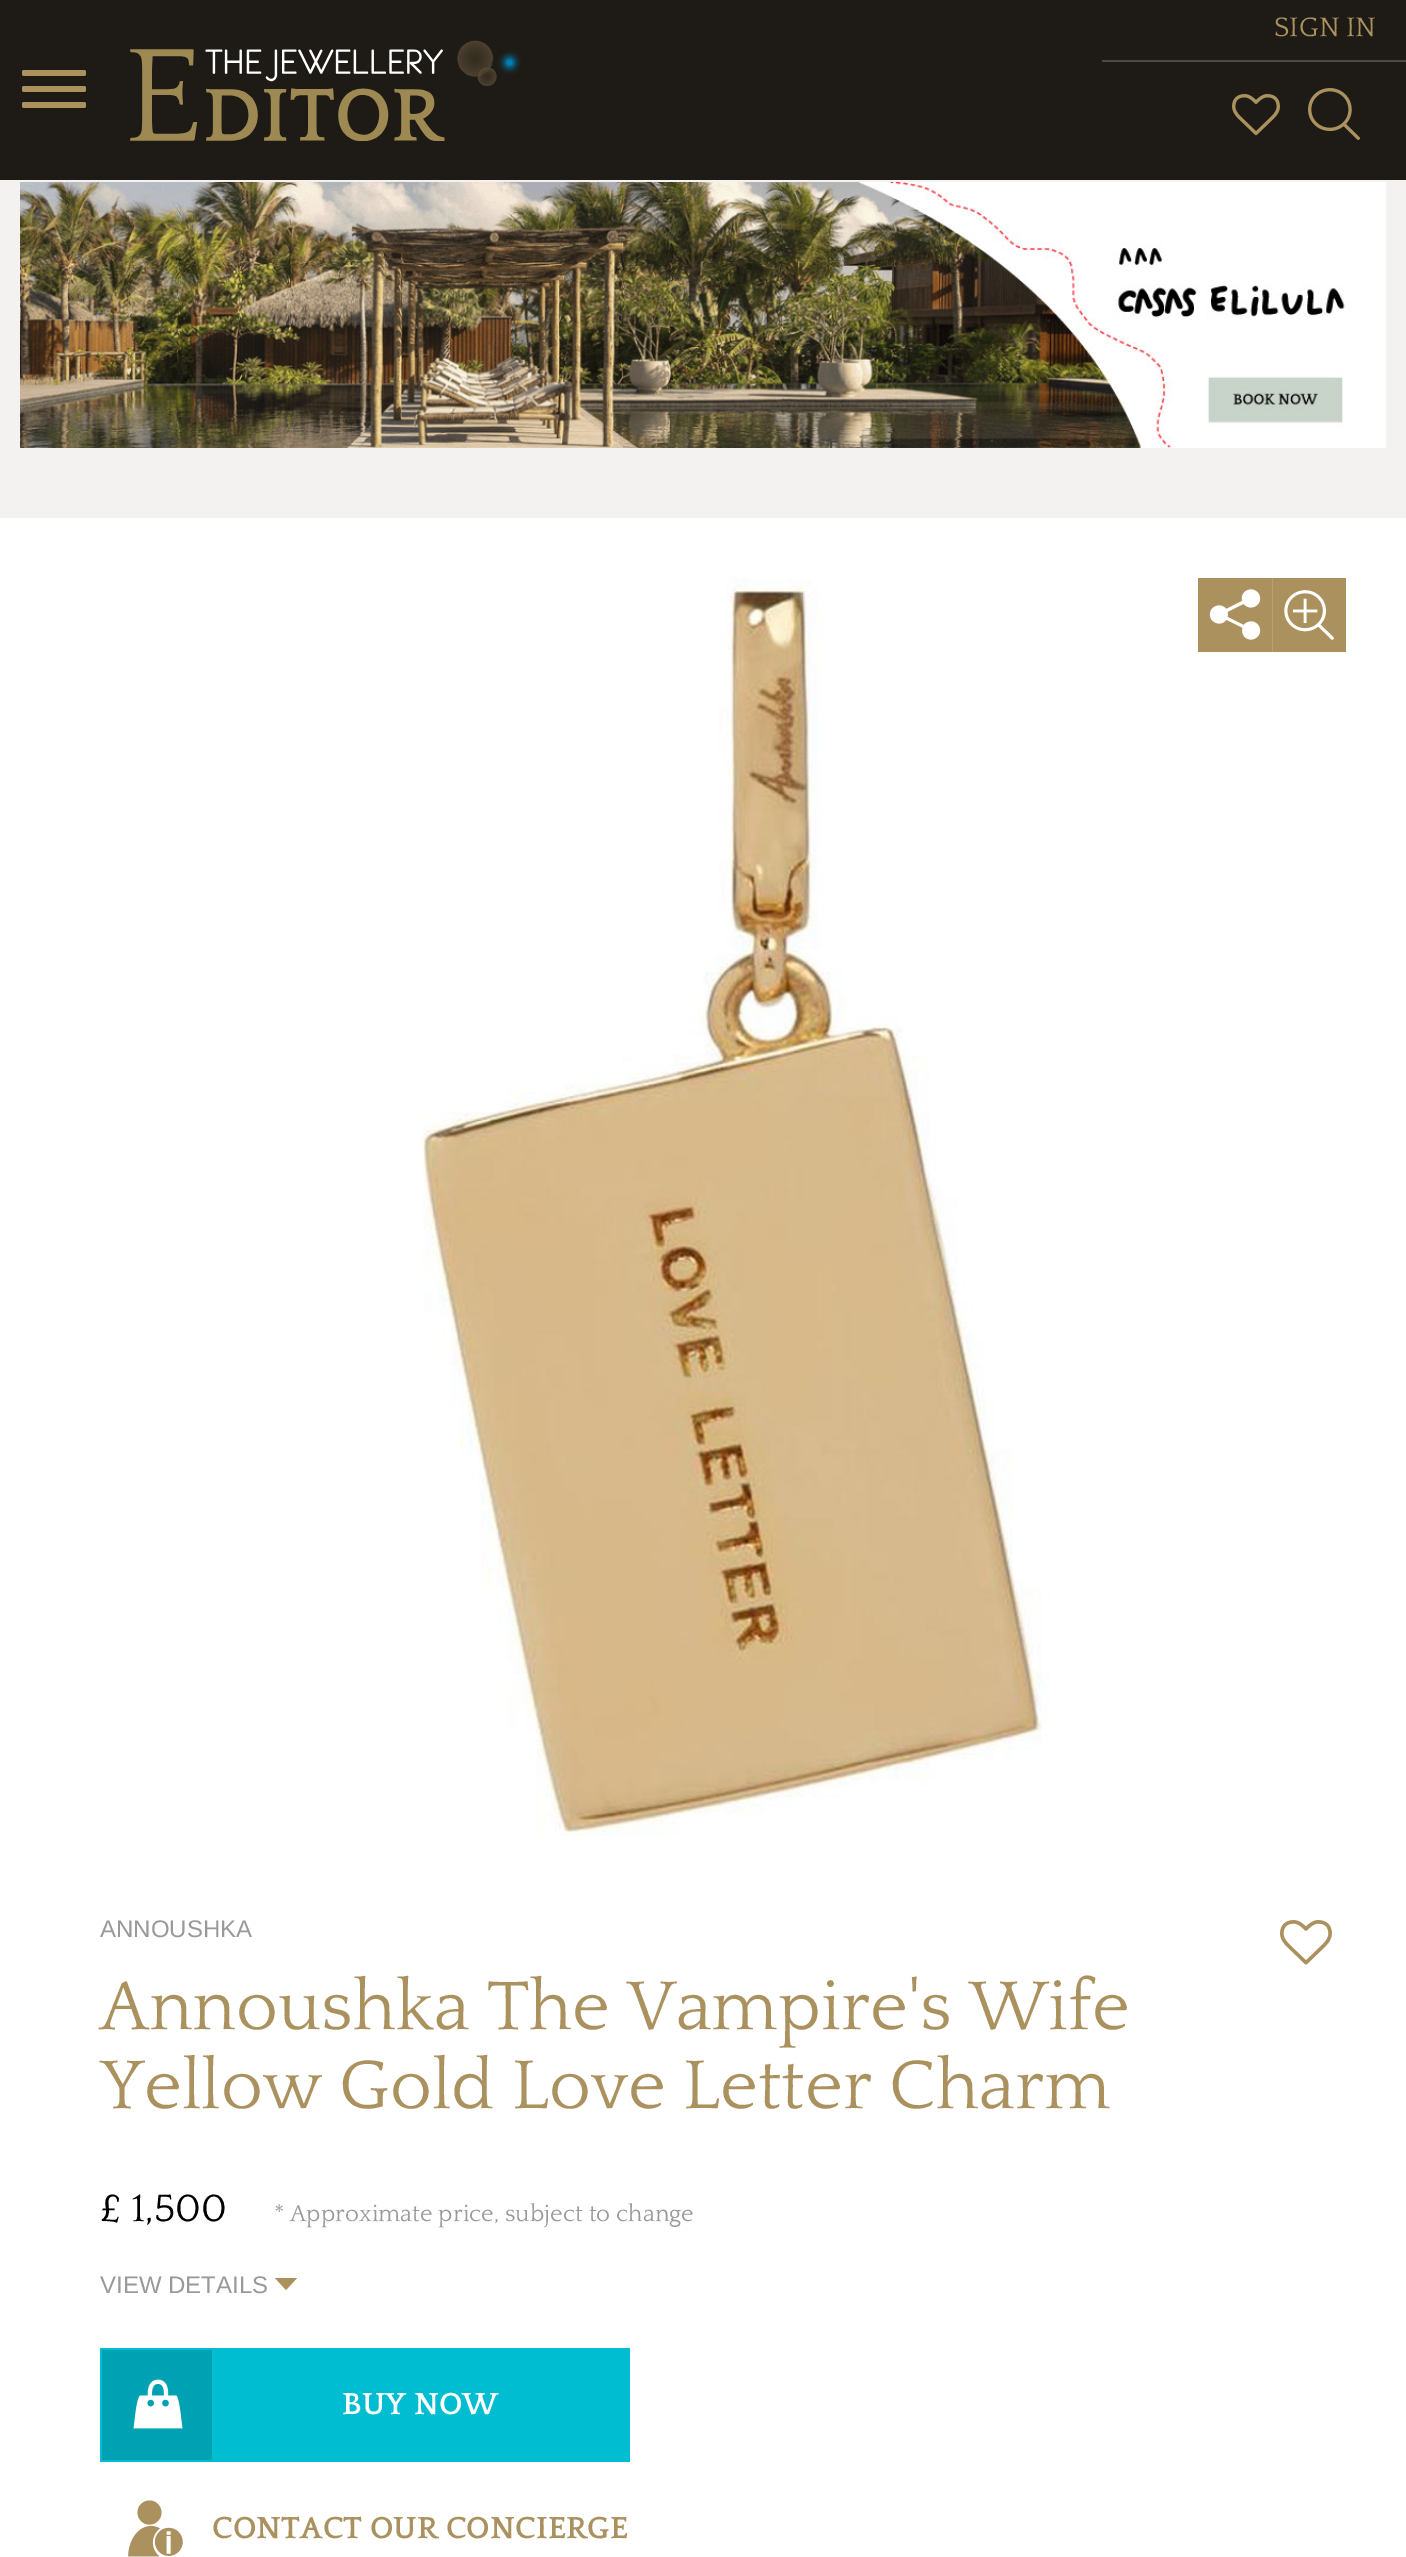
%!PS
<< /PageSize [1406 2557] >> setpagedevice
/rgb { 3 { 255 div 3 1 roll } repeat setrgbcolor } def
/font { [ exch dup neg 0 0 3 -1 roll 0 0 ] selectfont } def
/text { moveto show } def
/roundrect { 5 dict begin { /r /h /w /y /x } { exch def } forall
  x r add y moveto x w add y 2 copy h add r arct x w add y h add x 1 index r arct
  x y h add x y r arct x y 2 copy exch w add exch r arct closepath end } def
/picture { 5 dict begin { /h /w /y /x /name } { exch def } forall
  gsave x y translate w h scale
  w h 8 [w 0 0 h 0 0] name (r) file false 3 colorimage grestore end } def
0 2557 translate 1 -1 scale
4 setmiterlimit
243 242 240 rgb
0 0 1406 2557 rectfill
30 27 22 rgb
0 0 1406 180 rectfill
75 73 69 rgb
1102 60 304 2 rectfill
(img_01.rgb) 1232 94 48 42 picture
(img_02.rgb) 1308 88 52 52 picture
170 145 94 rgb
22 70 64 6 2 roundrect fill
22 86 64 6 2 roundrect fill
22 102 64 6 2 roundrect fill
(img_03.rgb) 130 40 391 101 picture
(img_04.rgb) 20 182 1366 266 picture
255 255 255 rgb
0 518 1406 2039 rectfill
(img_05.rgb) 421 578 629 1258 picture
(img_06.rgb) 1198 578 74 74 picture
(img_07.rgb) 1272 578 74 74 picture
170 145 94 rgb
275 2278 moveto 11 12 rlineto 11 -12 rlineto closepath fill
0 189 209 rgb
100 2348 530 114 rectfill
0 161 179 rgb
102 2350 110 110 rectfill
(img_08.rgb) 133 2379 50 50 picture
(img_09.rgb) 128 2500 55 57 picture
(img_10.rgb) 1280 1920 52 45 picture
/Quattrocento-Regular 28 font
170 145 94 rgb
(SIGN IN) 1274 36 text
/LiberationSans-Regular 24 font
153 153 153 rgb
(ANNOUSHKA) 100 1937 text
/Quattrocento-Regular 72 font
170 145 94 rgb
(Annoushka The Vampire's Wife) 100 2029 text
(Yellow Gold Love Letter Charm) 100 2108 text
/Quattrocento-Regular 40 font
0 0 0 rgb
(£ 1,500) 100 2221 text
/Quattrocento-Regular 24 font
153 153 153 rgb
(* Approximate price, subject to change) 274 2221 text
/LiberationSans-Regular 24 font
(VIEW DETAILS) 100 2293 text
/Quattrocento-Bold 32 font
255 255 255 rgb
(BUY NOW) 342 2414 text
170 145 94 rgb
(CONTACT OUR CONCIERGE) 212 2538 text
showpage
